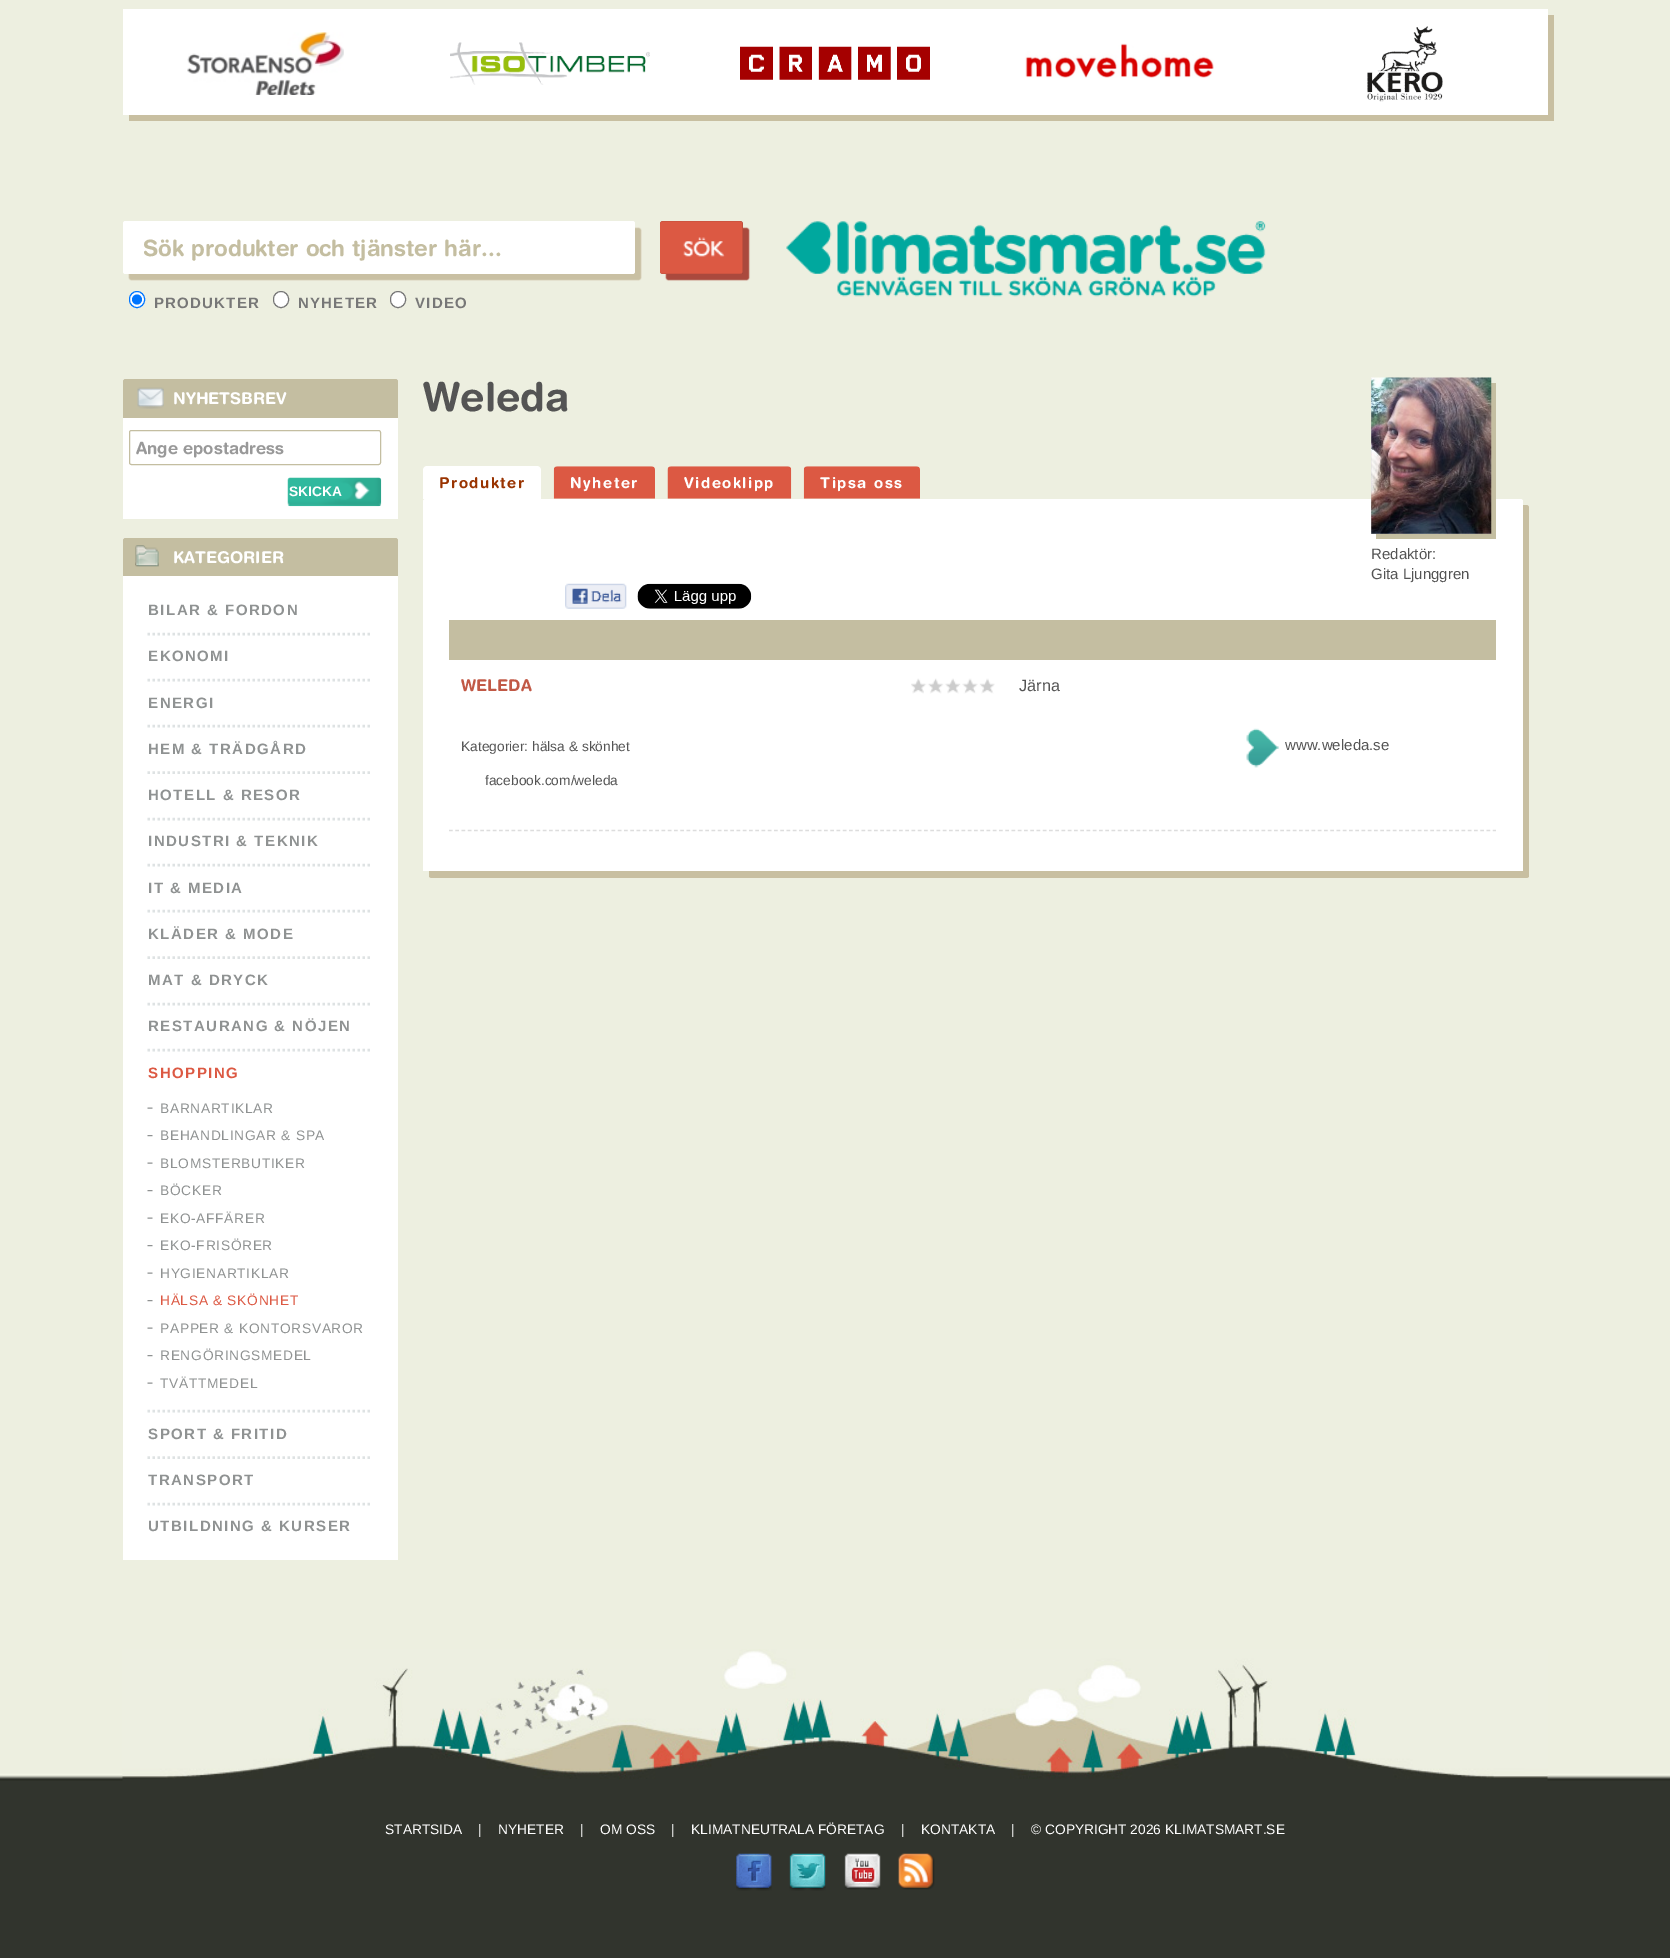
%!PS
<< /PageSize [1670 1958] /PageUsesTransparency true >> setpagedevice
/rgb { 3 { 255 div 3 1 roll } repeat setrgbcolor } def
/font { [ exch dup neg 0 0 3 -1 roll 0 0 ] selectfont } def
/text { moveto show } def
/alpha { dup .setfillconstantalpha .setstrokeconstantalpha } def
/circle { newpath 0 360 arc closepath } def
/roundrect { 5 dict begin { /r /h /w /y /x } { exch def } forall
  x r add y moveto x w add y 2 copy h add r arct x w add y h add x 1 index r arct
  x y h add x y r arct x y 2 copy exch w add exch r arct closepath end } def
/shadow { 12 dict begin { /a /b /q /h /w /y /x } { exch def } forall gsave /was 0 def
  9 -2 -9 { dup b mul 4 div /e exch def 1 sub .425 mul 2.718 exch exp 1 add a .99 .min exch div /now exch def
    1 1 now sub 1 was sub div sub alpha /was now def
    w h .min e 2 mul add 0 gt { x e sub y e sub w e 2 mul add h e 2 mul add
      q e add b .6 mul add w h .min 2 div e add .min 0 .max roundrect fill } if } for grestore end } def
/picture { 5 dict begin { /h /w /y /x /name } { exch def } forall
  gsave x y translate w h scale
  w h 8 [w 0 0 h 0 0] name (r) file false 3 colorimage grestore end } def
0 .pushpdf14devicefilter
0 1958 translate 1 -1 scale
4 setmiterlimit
49 52 45 rgb
0 0 1670 1958 rectfill
237 239 224 rgb
0 0 1670 1673 rectfill
200 191 161 rgb
129 115 moveto 0 6 rlineto 1425 0 rlineto 0 -106 rlineto -6 0 rlineto 0 100 rlineto closepath fill
255 255 255 rgb
123 9 1425 106 rectfill
(img_01.rgb) 187 32 157 63 picture
(img_02.rgb) 450 42 200 43 picture
(img_03.rgb) 740 46 190 34 picture
(img_04.rgb) 1025 43 189 35 picture
(img_05.rgb) 1367 26 76 76 picture
200 191 161 rgb
129 228 512 52 2.5 0.5 1 shadow
255 255 255 rgb
123 221 512 53 2.5 roundrect fill
168 69 57 rgb
666 228 83 52 2.5 0.5 1 shadow
660 221 83 53 2.5 roundrect fill
(img_06.rgb) 660 221 83 53 picture
255 255 255 rgb
129.5 291.5 15 16 7.5 roundrect gsave fill grestore
0 117 255 rgb
stroke
137 299.5 5 circle fill
255 255 255 rgb
273.5 291.5 15 16 7.5 roundrect gsave fill grestore
118 118 118 rgb
stroke
255 255 255 rgb
390.5 291.5 15 16 7.5 roundrect gsave fill grestore
118 118 118 rgb
stroke
(img_07.rgb) 786 221 480 76 picture
255 255 255 rgb
123 379 275 140 rectfill
196 190 161 rgb
125.5 379 moveto 270 0 rlineto 1.5 0 2.5 1 2.5 2.5 rcurveto 0 36.5 rlineto -275 0 rlineto 0 -36.5 rlineto 0 -1.5 1 -2.5 2.5 -2.5 rcurveto closepath fill
(img_08.rgb) 137 387 27 22 picture
129.5 430.5 251 34 2 roundrect stroke
239 239 239 rgb
288 478 93 28 2.5 roundrect fill
(img_09.rgb) 287 477 95 30 picture
255 255 255 rgb
123 538 275 1022 rectfill
196 190 161 rgb
125.5 538 moveto 270 0 rlineto 1.5 0 2.5 1 2.5 2.5 rcurveto 0 35.5 rlineto -275 0 rlineto 0 -35.5 rlineto 0 -1.5 1 -2.5 2.5 -2.5 rcurveto closepath fill
(img_10.rgb) 135 545 24 22 picture
222 226 227 rgb
2.5 setlinewidth
[2.5 2.5] 0 setdash
147.5 634 moveto 225 0 rlineto stroke
147.5 680 moveto 225 0 rlineto stroke
147.5 726 moveto 225 0 rlineto stroke
147.5 772.5 moveto 225 0 rlineto stroke
147.5 819 moveto 225 0 rlineto stroke
147.5 865 moveto 225 0 rlineto stroke
147.5 911 moveto 225 0 rlineto stroke
147.5 957.5 moveto 225 0 rlineto stroke
147.5 1004 moveto 225 0 rlineto stroke
147.5 1050 moveto 225 0 rlineto stroke
(img_11.rgb) 147 1107 6 2 picture
(img_12.rgb) 147 1135 6 2 picture
(img_11.rgb) 147 1162 6 2 picture
(img_12.rgb) 147 1190 6 2 picture
(img_11.rgb) 147 1217 6 2 picture
(img_12.rgb) 147 1245 6 2 picture
(img_11.rgb) 147 1272 6 2 picture
(img_12.rgb) 147 1300 6 2 picture
(img_11.rgb) 147 1327 6 2 picture
(img_12.rgb) 147 1355 6 2 picture
(img_11.rgb) 147 1382 6 2 picture
147.5 1411 moveto 225 0 rlineto stroke
147.5 1457.5 moveto 225 0 rlineto stroke
147.5 1504 moveto 225 0 rlineto stroke
255 255 255 rgb
427 466 moveto 110 0 rlineto 2 0 4 2 4 4 rcurveto 0 29 rlineto -118 0 rlineto 0 -29 rlineto 0 -2 2 -4 4 -4 rcurveto closepath fill
(img_13.rgb) 553 466 102 33 picture
(img_14.rgb) 667 466 125 33 picture
(img_15.rgb) 803 466 117 33 picture
200 191 161 rgb
429 871 moveto 0 5 rlineto 0 1 1 2 3 2 rcurveto 1094 0 rlineto 2 0 3 -1 3 -2 rcurveto 0 -368 rlineto 0 -2 -1 -3 -3 -3 rcurveto -4 0 rlineto 0 364 rlineto 0 1 -1 2 -2 2 rcurveto closepath fill
255 255 255 rgb
423 499 1100 372 2.5 roundrect fill
423 869 1100 2 rectfill
196 190 161 rgb
1376 534 moveto 0 5 rlineto 120 0 rlineto 0 -156 rlineto -5 0 rlineto 0 151 rlineto closepath fill
204 204 204 rgb
1371 378 120 156 rectfill
(img_16.rgb) 1371 377 121 157 picture
(img_17.rgb) 565 583 62 26 picture
(img_18.rgb) 637 583 115 26 picture
196 190 161 rgb
449 620 1047 40 rectfill
(img_19.rgb) 911 678 84 16 picture
(img_20.rgb) 1246 728 33 40 picture
221 221 221 rgb
1.2 setlinewidth
[3.75 2.5] 0 setdash
449 830.5 moveto 1047 0 rlineto stroke
(img_21.rgb) 0 1673 1670 108 picture
(img_22.rgb) 122 1649 1426 132 picture
(img_23.rgb) 736 1853 36 38 picture
(img_24.rgb) 789 1853 37 38 picture
(img_25.rgb) 844 1853 37 37 picture
(img_26.rgb) 898 1853 37 37 picture
/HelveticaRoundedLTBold-Bold 22.5 font
196 190 161 rgb
(Sök produkter och tjänster här...) 143 256 text
/LiberationSans-Bold 15 font
119 119 119 rgb
154 308 moveto 1.25 0 (PRODUKTER) ashow
298 308 moveto 1.25 0 (NYHETER) ashow
415 308 moveto 1.25 0 (VIDEO) ashow
/HelveticaRoundedLTBold-Bold 16.25 font
255 255 255 rgb
(NYHETSBREV) 173 404 text
/HelveticaRoundedLTBold-Bold 16.75 font
153 153 153 rgb
(Ange epostadress) 136 454 text
/LiberationSans-Bold 13.75 font
255 255 255 rgb
(SKICKA) 289 496 text
/HelveticaRoundedLTBold-Bold 16.25 font
(KATEGORIER) 173 563 text
/LiberationSans-Bold 15 font
143 146 146 rgb
148 615 moveto 1.5 0 (BILAR & FORDON) ashow
148 661 moveto 1.5 0 (EKONOMI) ashow
148 708 moveto 1.5 0 (ENERGI) ashow
148 754 moveto 1.5 0 (HEM & TRÄDGÅRD) ashow
148 800 moveto 1.5 0 (HOTELL & RESOR) ashow
148 846 moveto 1.5 0 (INDUSTRI & TEKNIK) ashow
148 893 moveto 1.5 0 (IT & MEDIA) ashow
148 939 moveto 1.5 0 (KLÄDER & MODE) ashow
148 985 moveto 1.5 0 (MAT & DRYCK) ashow
148 1031 moveto 1.5 0 (RESTAURANG & NÖJEN) ashow
220 89 67 rgb
148 1078 moveto 1.5 0 (SHOPPING) ashow
/LiberationSans-Regular 13.75 font
143 146 146 rgb
160 1113 moveto 0.7 0 (BARNARTIKLAR) ashow
160 1140 moveto 0.7 0 (BEHANDLINGAR & SPA) ashow
160 1168 moveto 0.7 0 (BLOMSTERBUTIKER) ashow
160 1195 moveto 0.7 0 (BÖCKER) ashow
160 1223 moveto 0.7 0 (EKO-AFFÄRER) ashow
160 1250 moveto 0.7 0 (EKO-FRISÖRER) ashow
160 1278 moveto 0.7 0 (HYGIENARTIKLAR) ashow
220 89 67 rgb
160 1305 moveto 0.7 0 (HÄLSA & SKÖNHET) ashow
143 146 146 rgb
160 1333 moveto 0.7 0 (PAPPER & KONTORSVAROR) ashow
160 1360 moveto 0.7 0 (RENGÖRINGSMEDEL) ashow
160 1388 moveto 0.7 0 (TVÄTTMEDEL) ashow
/LiberationSans-Bold 15 font
148 1439 moveto 1.5 0 (SPORT & FRITID) ashow
148 1485 moveto 1.5 0 (TRANSPORT) ashow
148 1531 moveto 1.5 0 (UTBILDNING & KURSER) ashow
/HelveticaRoundedLTBold-Bold 40 font
84 84 84 rgb
(Weleda) 423 411 text
/HelveticaRoundedLTBold-Bold 15 font
153 51 0 rgb
439 488 moveto 1.5 0 (Produkter) ashow
255 255 255 rgb
570 488 moveto 1.5 0 (Nyheter) ashow
684 488 moveto 1.5 0 (Videoklipp) ashow
820 488 moveto 1.5 0 (Tipsa oss) ashow
/LiberationSans-Regular 15 font
84 84 84 rgb
(Redaktör:) 1371 559 text
(Gita Ljunggren) 1371 579 text
/HelveticaRoundedLTBold-Bold 16.25 font
193 89 70 rgb
(WELEDA) 461 691 text
/LiberationSans-Regular 16.25 font
84 84 84 rgb
(Järna) 1019 691 text
/LiberationSans-Regular 15 font
(www.weleda.se) 1285 750 text
/LiberationSans-Regular 13.75 font
(Kategorier: hälsa & skönhet) 461 751 text
(facebook.com/weleda) 485 785 text
255 255 255 rgb
(STARTSIDA) 385 1834 text
(|) 478 1834 text
(NYHETER) 498 1834 text
(|) 580 1834 text
(OM OSS) 600 1834 text
(|) 671 1834 text
(KLIMATNEUTRALA FÖRETAG) 691 1834 text
(|) 901 1834 text
(KONTAKTA) 921 1834 text
(|) 1011 1834 text
(© COPYRIGHT 2026 KLIMATSMART.SE) 1031 1834 text
.poppdf14devicefilter showpage
